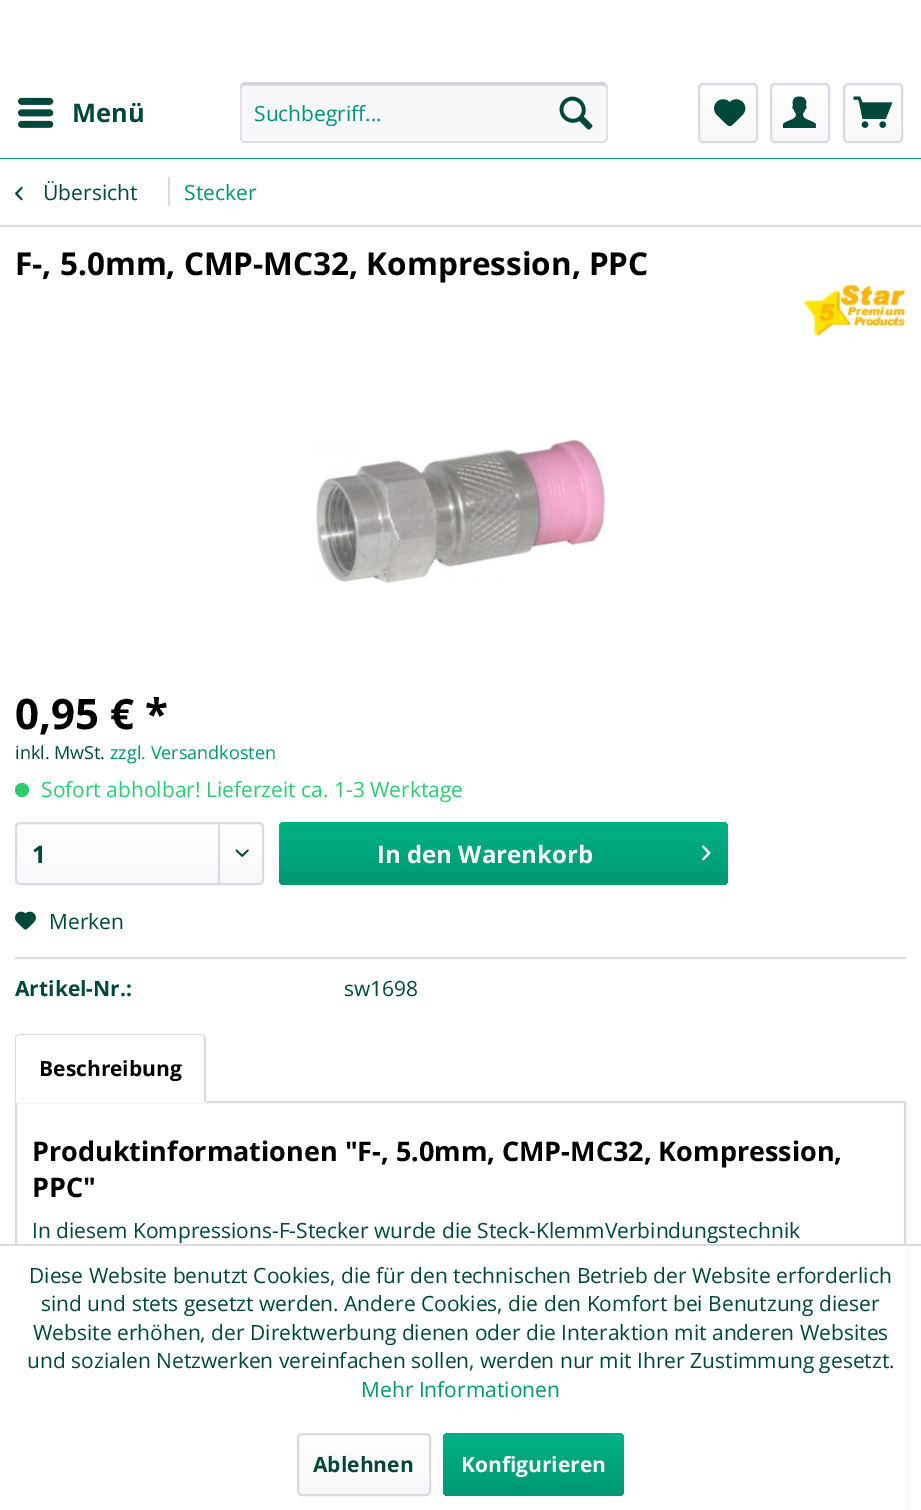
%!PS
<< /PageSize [921 1510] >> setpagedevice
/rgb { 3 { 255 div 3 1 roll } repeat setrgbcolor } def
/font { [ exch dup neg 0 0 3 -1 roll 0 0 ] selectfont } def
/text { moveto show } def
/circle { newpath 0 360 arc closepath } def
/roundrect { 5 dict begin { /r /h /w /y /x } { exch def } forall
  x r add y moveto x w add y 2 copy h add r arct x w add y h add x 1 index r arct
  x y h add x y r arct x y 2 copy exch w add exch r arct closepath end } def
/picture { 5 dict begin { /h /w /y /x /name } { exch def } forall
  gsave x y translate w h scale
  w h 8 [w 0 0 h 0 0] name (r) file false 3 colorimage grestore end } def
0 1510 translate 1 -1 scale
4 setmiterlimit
255 255 255 rgb
0 0 921 1510 rectfill
0 152 114 rgb
0 158 921 1 rectfill
(img_01.rgb) 18 97 36 31 picture
248 248 250 rgb
240 83 368 60 5 roundrect fill
218 218 229 rgb
244 86 moveto 359 0 rlineto 2 0 3 1 3 2 rcurveto 0 -2 -1 -4 -3 -4 rcurveto -358 0 rlineto -2 1 rlineto -1 3 rlineto 0 -1 1 -2 2 -2 rcurveto closepath fill
203 203 219 rgb
1.5 setlinewidth
242 84.5 moveto 2.5 -1.5 rlineto 358.5 0 rlineto 2.5 1.5 rlineto stroke
218 218 229 rgb
605.5 84.5 moveto 1 0.5 1.5 1.5 1.5 2.5 rcurveto 0 51 rlineto 0 1 -0.5 2 -1.5 2.5 rcurveto -0.5 1 -1.5 1.5 -2.5 1.5 rcurveto -358.5 0 rlineto -1 0 -2 -0.5 -2.5 -1.5 rcurveto -1 -0.5 -1 -1.5 -1 -2.5 rcurveto 0 -51 rlineto 0 -1 0 -2 1 -2.5 rcurveto stroke
(img_02.rgb) 559 96 34 34 picture
gsave 699 84 57 57 3 roundrect clip newpath
<< /ShadingType 2 /ColorSpace /DeviceRGB /Coords [728 84 728 141] /Extend [true true] /Function << /FunctionType 2 /Domain [0 1] /C0 [1 1 1] /C1 [0.973 0.973 0.98] /N 1 >> >> shfill grestore
2 setlinewidth
699 84 58 58 4 roundrect stroke
(img_03.rgb) 714 99 32 28 picture
gsave 771 84 57 57 3 roundrect clip newpath
<< /ShadingType 2 /ColorSpace /DeviceRGB /Coords [800 84 800 141] /Extend [true true] /Function << /FunctionType 2 /Domain [0 1] /C0 [1 1 1] /C1 [0.973 0.973 0.98] /N 1 >> >> shfill grestore
771 84 58 58 4 roundrect stroke
(img_04.rgb) 783 96 33 32 picture
gsave 845 84 57 57 3 roundrect clip newpath
<< /ShadingType 2 /ColorSpace /DeviceRGB /Coords [873 84 873 141] /Extend [true true] /Function << /FunctionType 2 /Domain [0 1] /C0 [1 1 1] /C1 [0.973 0.973 0.98] /N 1 >> >> shfill grestore
844 84 58 58 4 roundrect stroke
(img_05.rgb) 853 96 40 32 picture
0 225 921 2 rectfill
(img_06.rgb) 15 186 8 15 picture
168 177 2 29 rectfill
(img_07.rgb) 802 283 104 53 picture
(img_08.rgb) 316 439 290 145 picture
46 204 113 rgb
22 790 7 circle fill
gsave 17 824 246 60 3 roundrect clip newpath
<< /ShadingType 2 /ColorSpace /DeviceRGB /Coords [140 824 140 884] /Extend [true true] /Function << /FunctionType 2 /Domain [0 1] /C0 [1 1 1] /C1 [0.973 0.973 0.98] /N 1 >> >> shfill grestore
218 218 229 rgb
16 823 247 61 4 roundrect stroke
218 824 2 60 rectfill
(img_09.rgb) 235 849 14 8 picture
gsave 279 822 449 63 5 roundrect clip newpath
<< /ShadingType 2 /ColorSpace /DeviceRGB /Coords [503 822 503 885] /Extend [true true] /Function << /FunctionType 2 /Domain [0 1] /C0 [0 0.698 0.522] /C1 [0 0.596 0.447] /N 1 >> >> shfill grestore
(img_10.rgb) 702 845 9 16 picture
15 957 891 2 rectfill
(img_11.rgb) 15 911 21 19 picture
16 1102 889 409 rectstroke
255 255 255 rgb
20 1034 moveto 181 0 rlineto 3 0 5 2 5 5 rcurveto 0 64 rlineto -191 0 rlineto 0 -64 rlineto 0 -3 2 -5 5 -5 rcurveto closepath fill
218 218 229 rgb
20 1034 moveto -3 1 rlineto 0 1 rlineto 3 -1 rlineto 181 0 rlineto 2 1 rlineto 1 -1 rlineto -3 -1 rlineto closepath fill
206 1102 moveto -2 -1 rlineto 0 -7 1 -64 -1 -65 rcurveto 1 -1 rlineto 2 2 rlineto closepath fill
255 255 255 rgb
205 1102 moveto -189 0 rlineto 0 -1 rlineto 188 0 rlineto closepath fill
218 218 229 rgb
15 1038 moveto 0 64 rlineto 1 0 rlineto 0 -1 rlineto 0 -63 rlineto 1 -2 rlineto 0 -1 rlineto -1 1 -2 2 -2 3 rcurveto closepath fill
255 255 255 rgb
15 1246 891 264 rectfill
218 218 229 rgb
0 1244 921 2 rectfill
gsave 299 1434 130 60 3 roundrect clip newpath
<< /ShadingType 2 /ColorSpace /DeviceRGB /Coords [364 1434 364 1494] /Extend [true true] /Function << /FunctionType 2 /Domain [0 1] /C0 [1 1 1] /C1 [0.973 0.973 0.98] /N 1 >> >> shfill grestore
298 1434 132 61 4 roundrect stroke
gsave 443 1433 181 63 5 roundrect clip newpath
<< /ShadingType 2 /ColorSpace /DeviceRGB /Coords [533 1433 533 1496] /Extend [true true] /Function << /FunctionType 2 /Domain [0 1] /C0 [0 0.698 0.522] /C1 [0 0.596 0.447] /N 1 >> >> shfill grestore
/OpenSans-Bold 25.5 font
0 71 59 rgb
(Menü) 72 122 text
/OpenSans-Regular 21 font
0 147 123 rgb
(Suchbegriff...) 254 121 text
0 71 59 rgb
(Übersicht) 43 200 text
0 152 114 rgb
(Stecker) 184 200 text
/OpenSans-Bold 31.5 font
0 0 0 rgb
(F-, 5.0mm, CMP-MC32, Kompression, PPC) 15 275 text
/OpenSans-Bold 42 font
(0,95 € *) 15 729 text
/OpenSans-Regular 18 font
0 71 59 rgb
(inkl. MwSt.) 15 759 text
0 152 114 rgb
(zzgl. Versandkosten) 110 759 text
/OpenSans-Regular 21 font
46 204 113 rgb
(Sofort abholbar! Lieferzeit ca. 1-3 Werktage) 41 797 text
/OpenSans-Bold 24 font
0 71 59 rgb
(1) 32 863 text
255 255 255 rgb
(In den Warenkorb) 377 863 text
/OpenSans-Regular 21 font
0 71 59 rgb
(Merken) 49 929 text
/OpenSans-Bold 21 font
(Artikel-Nr.:) 15 996 text
/OpenSans-Regular 21 font
(sw1698) 344 996 text
/OpenSans-Bold 21 font
0 0 0 rgb
(Beschreibung) 39 1076 text
/OpenSans-Bold 27 font
(Produktinformationen "F-, 5.0mm, CMP-MC32, Kompression,) 32 1161 text
(PPC") 32 1197 text
/OpenSans-Regular 21 font
0 71 59 rgb
(In diesem Kompressions-F-Stecker wurde die Steck-KlemmVerbindungstechnik) 32 1238 text
(Diese Website benutzt Cookies, die für den technischen Betrieb der Website erforderlich) 29 1283 text
(sind und stets gesetzt werden. Andere Cookies, die den Komfort bei Benutzung dieser) 41 1311 text
(Website erhöhen, der Direktwerbung dienen oder die Interaktion mit anderen Websites) 33 1340 text
(und sozialen Netzwerken vereinfachen sollen, werden nur mit Ihrer Zustimmung gesetzt.) 27 1368 text
0 152 114 rgb
(Mehr Informationen) 361 1397 text
/OpenSans-Bold 21 font
0 71 59 rgb
(Ablehnen) 313 1472 text
255 255 255 rgb
(Konfigurieren) 461 1472 text
showpage
